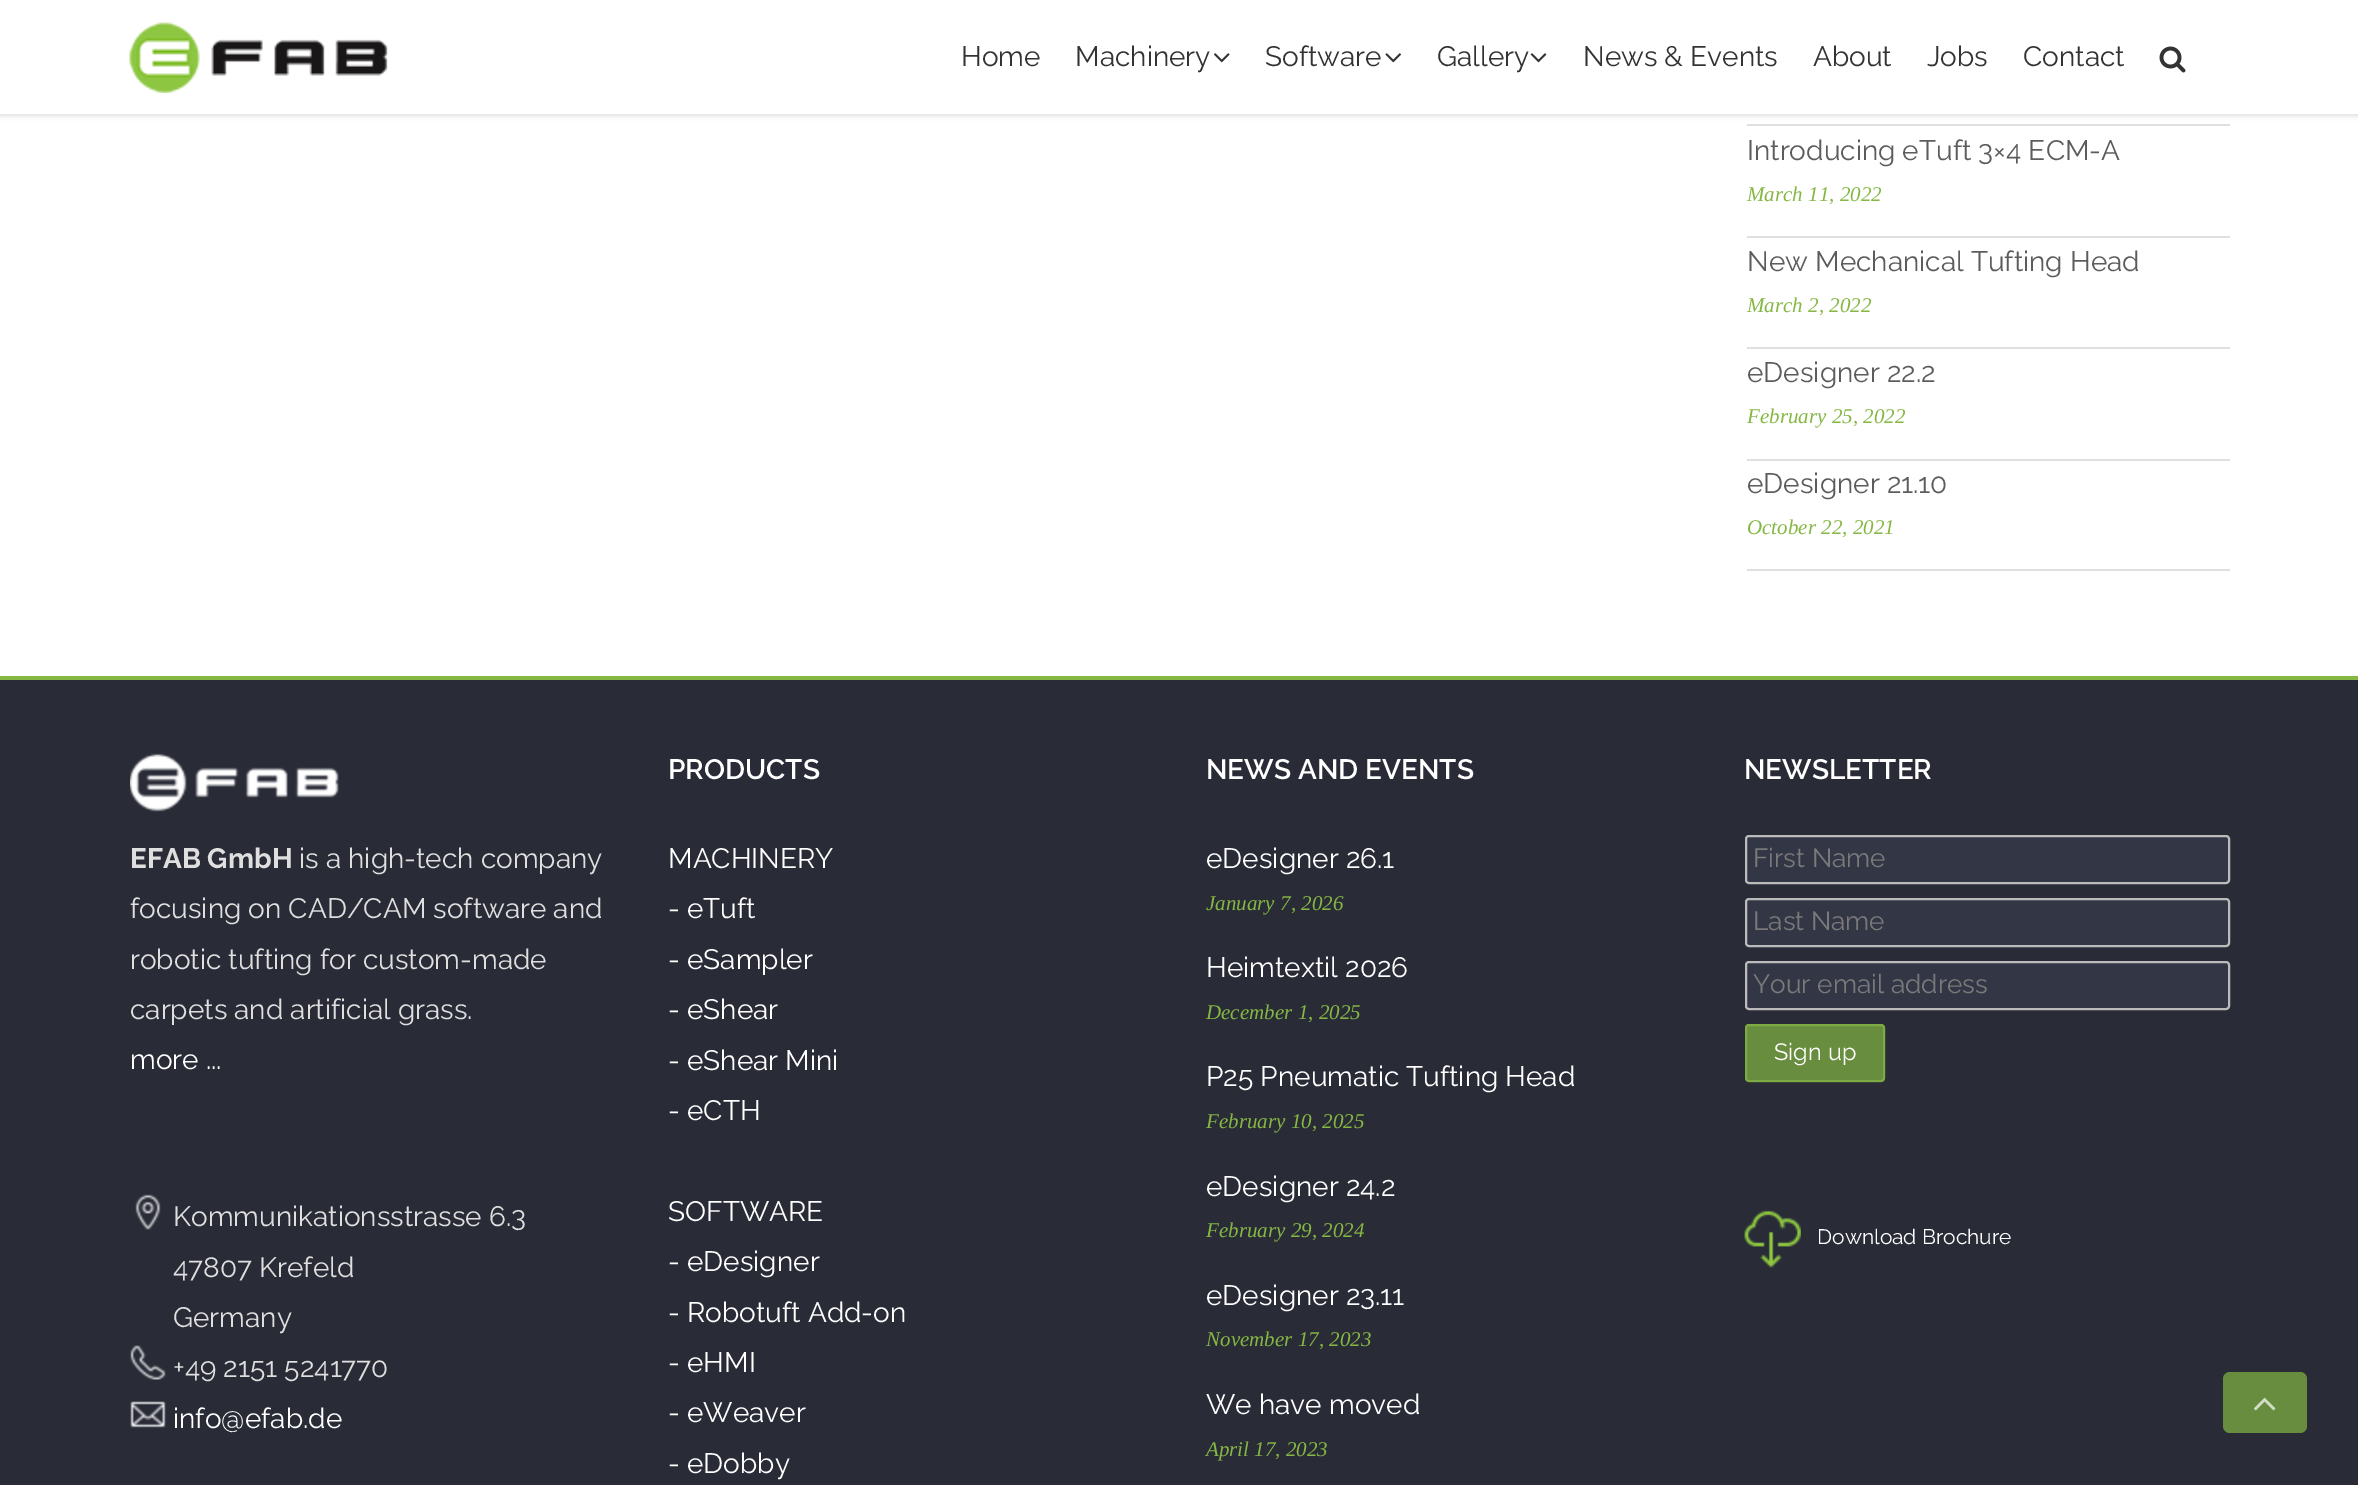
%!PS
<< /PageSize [2358 1485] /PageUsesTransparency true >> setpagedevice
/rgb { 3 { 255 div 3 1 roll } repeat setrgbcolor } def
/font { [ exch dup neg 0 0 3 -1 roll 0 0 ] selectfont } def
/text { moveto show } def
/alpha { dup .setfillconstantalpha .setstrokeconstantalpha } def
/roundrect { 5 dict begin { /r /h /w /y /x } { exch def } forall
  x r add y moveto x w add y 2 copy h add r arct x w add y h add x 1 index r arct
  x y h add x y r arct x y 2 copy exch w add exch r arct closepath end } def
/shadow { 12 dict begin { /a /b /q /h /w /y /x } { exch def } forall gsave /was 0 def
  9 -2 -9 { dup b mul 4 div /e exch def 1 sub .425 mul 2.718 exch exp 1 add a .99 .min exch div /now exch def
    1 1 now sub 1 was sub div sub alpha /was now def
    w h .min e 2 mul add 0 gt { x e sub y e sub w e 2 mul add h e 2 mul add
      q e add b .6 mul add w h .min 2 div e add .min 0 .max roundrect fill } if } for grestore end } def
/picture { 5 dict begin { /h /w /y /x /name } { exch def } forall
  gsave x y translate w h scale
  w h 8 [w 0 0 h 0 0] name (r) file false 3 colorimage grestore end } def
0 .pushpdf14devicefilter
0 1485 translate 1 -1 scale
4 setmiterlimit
255 255 255 rgb
0 0 2358 1485 rectfill
224 222 222 rgb
1747 124 483 2 rectfill
0 0 0 rgb
0 2 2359 114 0 2.5 0.12 shadow
255 255 255 rgb
0 0 2358 114 rectfill
(img_01.rgb) 129 22 259 71 picture
(img_02.rgb) 1214 53 16 10 picture
(img_03.rgb) 1385 53 16 10 picture
(img_04.rgb) 1530 53 17 10 picture
(img_05.rgb) 2159 46 27 27 picture
224 222 222 rgb
1747 236 483 2 rectfill
1747 347 483 2 rectfill
1747 459 483 2 rectfill
1747 569 483 2 rectfill
41 43 55 rgb
0 680 2358 805 rectfill
133 183 67 rgb
0 676 2358 4 rectfill
(img_06.rgb) 130 753 209 59 picture
(img_07.rgb) 135 1194 26 36 picture
(img_08.rgb) 130 1345 36 35 picture
(img_09.rgb) 130 1401 36 27 picture
51 54 69 rgb
1746 836 483 47 3 roundrect gsave fill grestore
187 187 187 rgb
2 setlinewidth
stroke
51 54 69 rgb
1746 899 483 47 3 roundrect gsave fill grestore
187 187 187 rgb
stroke
51 54 69 rgb
1746 962 483 47 3 roundrect gsave fill grestore
187 187 187 rgb
stroke
105 141 63 rgb
1745 1024 140 58 4 roundrect fill
0.7 alpha
133 183 67 rgb
1746 1025 138 56 3 roundrect stroke
1 alpha
(img_10.rgb) 1744 1210 57 58 picture
105 141 63 rgb
2223 1372 84 61 7 roundrect fill
(img_11.rgb) 2254 1397 22 14 picture
/Raleway-Regular 28 font
51 51 51 rgb
(Home) 961 66 text
(Machinery) 1075 66 text
(Software) 1265 66 text
(Gallery) 1437 66 text
(News & Events) 1583 66 text
(About) 1813 66 text
(Jobs) 1927 66 text
(Contact) 2023 66 text
92 92 92 rgb
(Introducing eTuft 3×4 ECM-A) 1747 160 text
/LiberationSerif-Italic 21 font
133 183 67 rgb
(March 11, 2022) 1747 201 text
/Raleway-Regular 28 font
92 92 92 rgb
(New Mechanical Tufting Head) 1747 271 text
/LiberationSerif-Italic 21 font
133 183 67 rgb
(March 2, 2022) 1747 312 text
/Raleway-Regular 28 font
92 92 92 rgb
(eDesigner 22.2) 1747 382 text
/LiberationSerif-Italic 21 font
133 183 67 rgb
(February 25, 2022) 1747 423 text
/Raleway-Regular 28 font
92 92 92 rgb
(eDesigner 21.10) 1747 493 text
/LiberationSerif-Italic 21 font
133 183 67 rgb
(October 22, 2021) 1747 534 text
/Raleway-Bold 28 font
223 223 223 rgb
(EFAB GmbH) 130 868 text
/Raleway-Regular 28 font
(is a high-tech company) 299 868 text
(focusing on CAD/CAM software and) 130 918 text
(robotic tufting for custom-made) 130 969 text
(carpets and artificial grass.) 130 1019 text
255 255 255 rgb
(more ...) 130 1069 text
223 223 223 rgb
(Kommunikationsstrasse 6.3) 173 1226 text
(47807 Krefeld) 173 1277 text
(Germany) 173 1327 text
(+49 2151 5241770) 173 1377 text
255 255 255 rgb
(info@efab.de) 173 1428 text
/Raleway-SemiBold 28 font
(PRODUCTS) 668 779 text
/Raleway-Regular 28 font
(MACHINERY) 668 868 text
(- eTuft) 668 918 text
(- eSampler) 668 969 text
(- eShear) 668 1019 text
(- eShear Mini) 668 1070 text
(- eCTH) 668 1120 text
(SOFTWARE) 668 1221 text
(- eDesigner) 668 1271 text
(- Robotuft Add-on) 668 1322 text
(- eHMI) 668 1372 text
(- eWeaver) 668 1422 text
(- eDobby) 668 1473 text
/Raleway-SemiBold 28 font
(NEWS AND EVENTS) 1206 779 text
/Raleway-Regular 28 font
(eDesigner 26.1) 1206 868 text
/LiberationSerif-Italic 21 font
133 183 67 rgb
(January 7, 2026) 1206 910 text
/Raleway-Regular 28 font
255 255 255 rgb
(Heimtextil 2026) 1206 977 text
/LiberationSerif-Italic 21 font
133 183 67 rgb
(December 1, 2025) 1206 1019 text
/Raleway-Regular 28 font
255 255 255 rgb
(P25 Pneumatic Tufting Head) 1206 1086 text
/LiberationSerif-Italic 21 font
133 183 67 rgb
(February 10, 2025) 1206 1128 text
/Raleway-Regular 28 font
255 255 255 rgb
(eDesigner 24.2) 1206 1196 text
/LiberationSerif-Italic 21 font
133 183 67 rgb
(February 29, 2024) 1206 1237 text
/Raleway-Regular 28 font
255 255 255 rgb
(eDesigner 23.11) 1206 1305 text
/LiberationSerif-Italic 21 font
133 183 67 rgb
(November 17, 2023) 1206 1346 text
/Raleway-Regular 28 font
255 255 255 rgb
(We have moved) 1206 1414 text
/LiberationSerif-Italic 21 font
133 183 67 rgb
(April 17, 2023) 1206 1456 text
/Raleway-SemiBold 28 font
255 255 255 rgb
(NEWSLETTER) 1744 779 text
/Raleway-Regular 26.25 font
122 122 122 rgb
(First Name) 1753 867 text
(Last Name) 1753 930 text
(Your email address) 1753 993 text
/Raleway-Regular 23.5 font
255 255 255 rgb
(Sign up) 1774 1060 text
/Raleway-Regular 21 font
(Download Brochure) 1817 1244 text
.poppdf14devicefilter showpage
